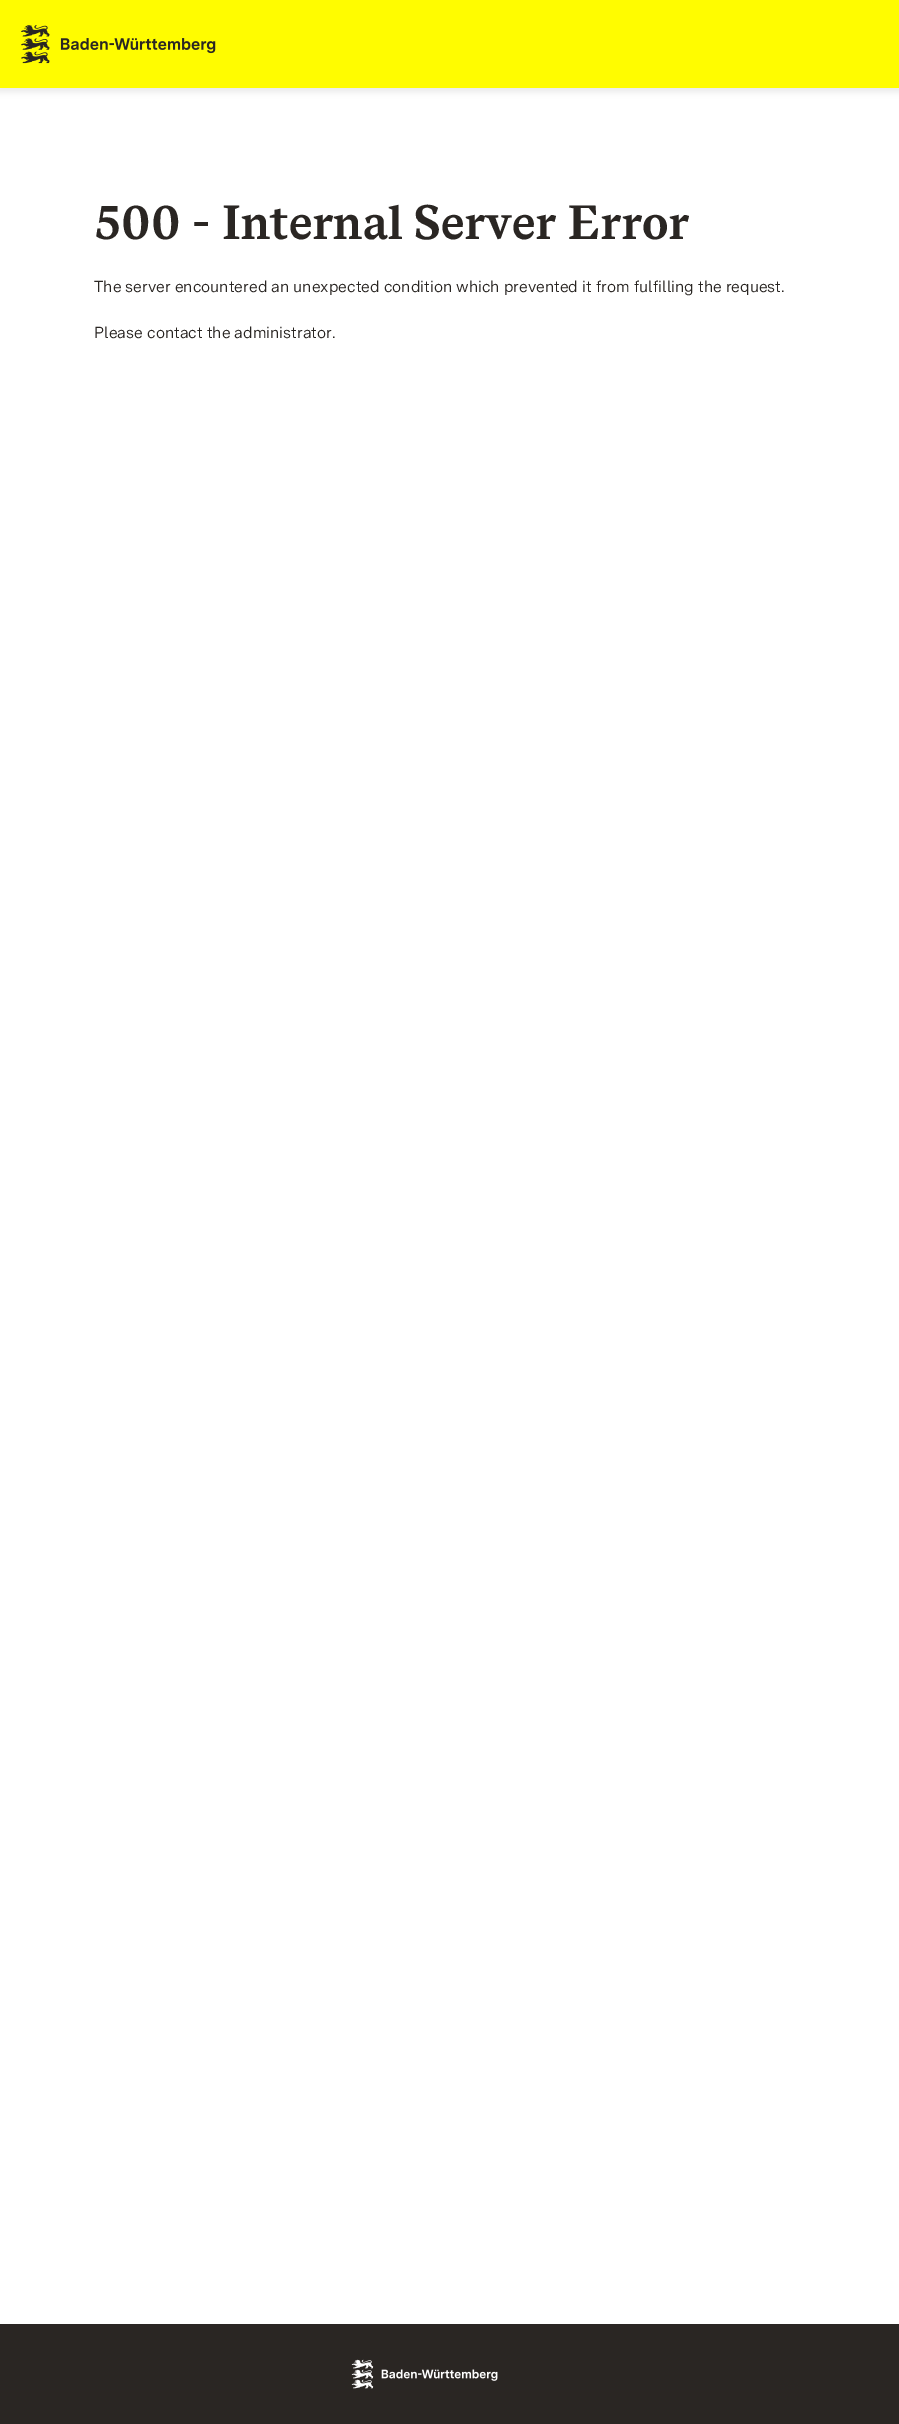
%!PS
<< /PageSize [899 2424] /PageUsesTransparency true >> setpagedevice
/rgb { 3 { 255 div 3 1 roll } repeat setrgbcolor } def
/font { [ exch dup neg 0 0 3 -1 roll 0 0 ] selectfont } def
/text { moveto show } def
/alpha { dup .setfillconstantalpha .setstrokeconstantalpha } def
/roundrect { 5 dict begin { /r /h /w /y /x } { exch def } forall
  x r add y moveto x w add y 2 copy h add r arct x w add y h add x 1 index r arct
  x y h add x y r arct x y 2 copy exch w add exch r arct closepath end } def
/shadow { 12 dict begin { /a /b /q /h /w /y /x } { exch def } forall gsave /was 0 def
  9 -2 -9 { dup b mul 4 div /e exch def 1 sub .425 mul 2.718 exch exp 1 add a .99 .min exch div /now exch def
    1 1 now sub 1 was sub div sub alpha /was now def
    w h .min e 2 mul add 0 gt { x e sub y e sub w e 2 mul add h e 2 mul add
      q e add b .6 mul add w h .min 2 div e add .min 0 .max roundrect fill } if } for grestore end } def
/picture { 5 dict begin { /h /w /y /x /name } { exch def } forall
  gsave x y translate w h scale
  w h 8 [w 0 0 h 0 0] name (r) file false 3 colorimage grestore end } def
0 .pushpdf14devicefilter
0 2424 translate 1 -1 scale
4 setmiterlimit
255 255 255 rgb
0 0 899 2424 rectfill
42 38 35 rgb
-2 0 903 92 0 3 0.1 shadow
255 252 0 rgb
0 0 899 88 rectfill
(img_01.rgb) 21 25 195 39 picture
42 38 35 rgb
0 2324 899 100 rectfill
(img_02.rgb) 351 2359 147 30 picture
/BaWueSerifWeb-Bold 48 font
(500 - Internal Server Error) 94 239 text
/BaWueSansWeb-Regular 16 font
(The server encountered an unexpected condition which prevented it from fulfilling the request.) 94 292 text
(Please contact the administrator.) 94 338 text
.poppdf14devicefilter showpage
